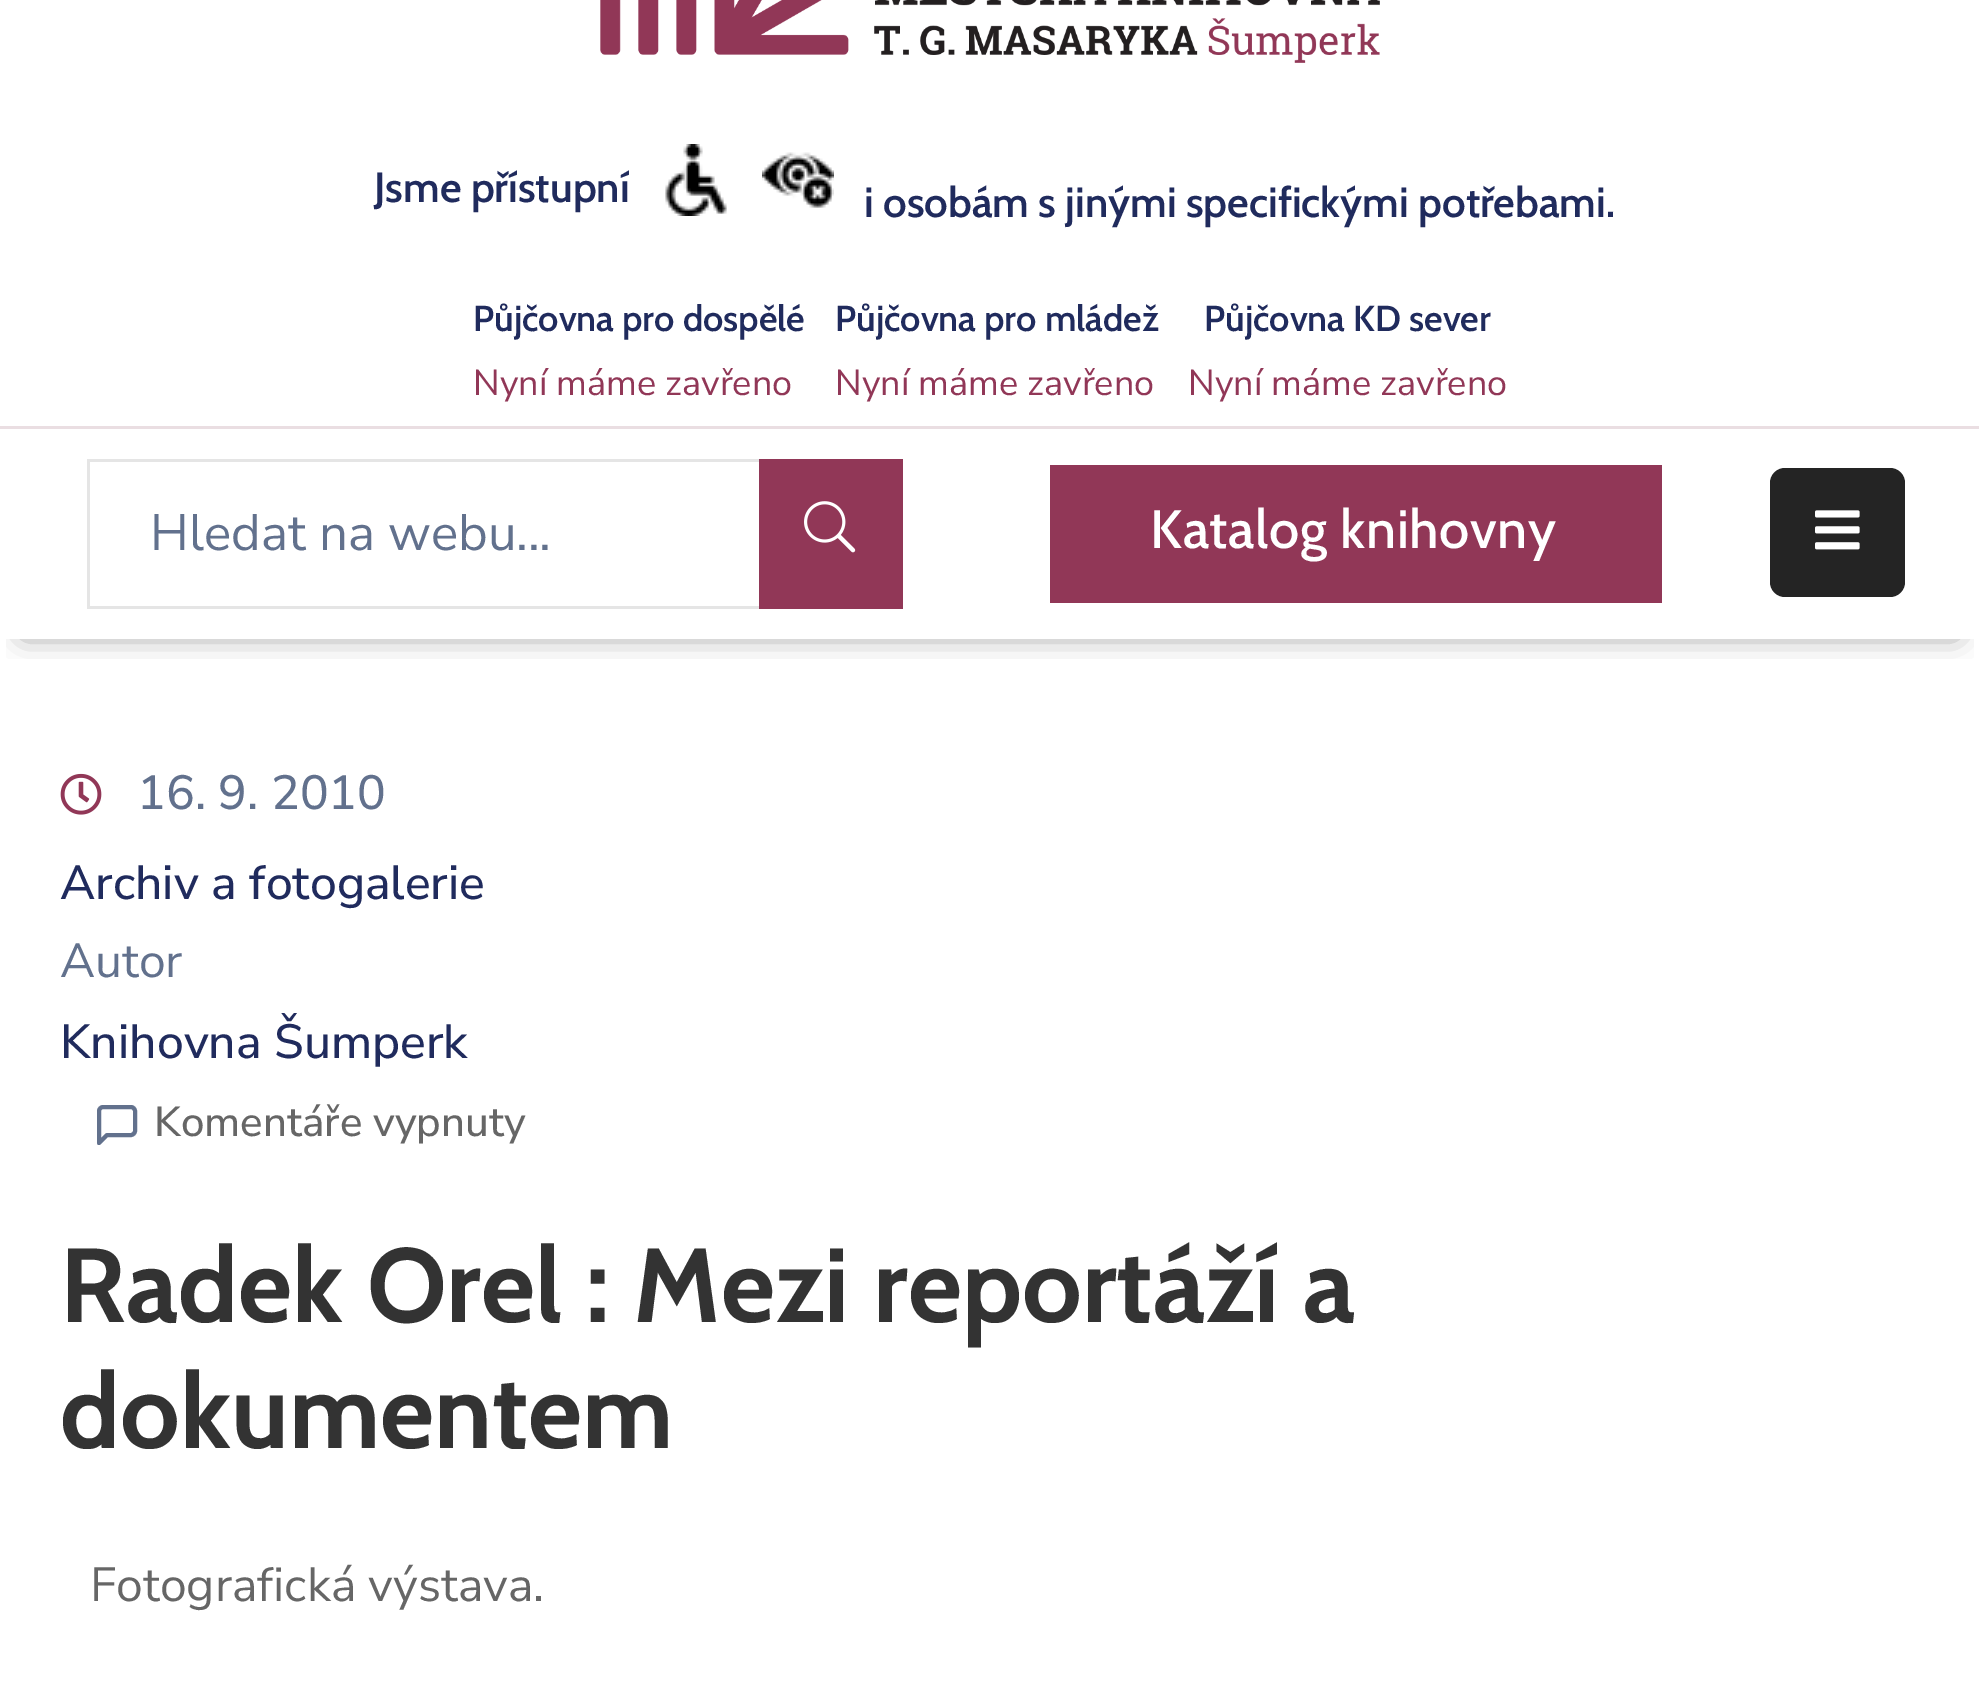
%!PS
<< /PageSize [1979 1707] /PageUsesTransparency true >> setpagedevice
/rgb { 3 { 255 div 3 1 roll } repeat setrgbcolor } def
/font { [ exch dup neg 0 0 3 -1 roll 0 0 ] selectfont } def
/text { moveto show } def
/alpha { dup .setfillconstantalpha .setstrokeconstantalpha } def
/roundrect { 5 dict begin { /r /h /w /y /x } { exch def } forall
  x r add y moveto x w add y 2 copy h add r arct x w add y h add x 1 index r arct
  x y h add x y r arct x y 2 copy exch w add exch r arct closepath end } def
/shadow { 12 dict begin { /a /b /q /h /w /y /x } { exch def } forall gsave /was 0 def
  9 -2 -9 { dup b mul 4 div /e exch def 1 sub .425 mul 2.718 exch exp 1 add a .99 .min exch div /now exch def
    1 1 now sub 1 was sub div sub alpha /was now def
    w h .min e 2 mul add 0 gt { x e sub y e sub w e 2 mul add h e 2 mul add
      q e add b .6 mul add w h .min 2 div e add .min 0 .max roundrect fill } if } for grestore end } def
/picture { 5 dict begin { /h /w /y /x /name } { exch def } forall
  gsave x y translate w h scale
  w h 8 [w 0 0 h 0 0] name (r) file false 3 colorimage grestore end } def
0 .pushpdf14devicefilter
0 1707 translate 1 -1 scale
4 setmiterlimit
255 255 255 rgb
0 0 1979 1707 rectfill
234 222 226 rgb
0 426 1979 3 rectfill
(img_01.rgb) 600 0 780 63 picture
(img_02.rgb) 665 144 62 72 picture
(img_03.rgb) 762 152 72 56 picture
gsave
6 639 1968 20 rectclip
0 0 0 rgb
24 471 1932 162 0 15 0.5 shadow
grestore
229 229 229 rgb
87 459 672 3 rectfill
87 606 672 3 rectfill
87 459 3 150 rectfill
145 55 87 rgb
759 459 144 150 rectfill
(img_04.rgb) 804 501 52 52 picture
1050 465 612 138 rectfill
36 36 36 rgb
1770 468 135 129 15 roundrect fill
(img_05.rgb) 1815 510 45 40 picture
(img_06.rgb) 60 773 42 42 picture
98 113 141 rgb
4 setlinewidth
1 setlinecap
1 setlinejoin
135 1131 moveto 0 2 -2 4 -4 4 rcurveto -24 0 rlineto -8 8 rlineto 0 -32 rlineto 0 -2 2 -4 4 -4 rcurveto 28 0 rlineto 2 0 4 2 4 4 rcurveto closepath stroke
/Cabin-SemiBold 42 font
32 43 93 rgb
(Jsme přístupní) 374 202 text
(i osobám s jinými specifickými potřebami.) 864 217 text
/Cabin-SemiBold 36 font
(Půjčovna pro dospělé) 473 331 text
/NunitoSans-Regular 36 font
145 55 87 rgb
(Nyní máme zavřeno) 473 395 text
/Cabin-SemiBold 36 font
32 43 93 rgb
(Půjčovna pro mládež) 835 331 text
/NunitoSans-Regular 36 font
145 55 87 rgb
(Nyní máme zavřeno) 835 395 text
/Cabin-SemiBold 36 font
32 43 93 rgb
(Půjčovna KD sever) 1204 331 text
/NunitoSans-Regular 36 font
145 55 87 rgb
(Nyní máme zavřeno) 1188 395 text
/NunitoSans-Regular 51 font
98 113 141 rgb
(Hledat na webu...) 150 550 text
/Cabin-Medium 54 font
255 255 255 rgb
1150 548 moveto 0.6 0 (Katalog knihovny) ashow
/NunitoSans-Medium 48 font
98 113 141 rgb
(16. 9. 2010) 137 809 text
32 43 93 rgb
(Archiv a fotogalerie) 60 899 text
/NunitoSans-Regular 48 font
98 113 141 rgb
(Autor) 60 977 text
/NunitoSans-Medium 48 font
32 43 93 rgb
(Knihovna Šumperk) 60 1058 text
/NunitoSans-Medium 42 font
102 102 102 rgb
(Komentáře vypnuty) 154 1136 text
/Cabin-Bold 105 font
51 51 51 rgb
(Radek Orel : Mezi reportáží a) 60 1322 text
(dokumentem) 60 1448 text
/NunitoSans-Regular 48 font
102 102 102 rgb
(Fotografická výstava.) 90 1601 text
.poppdf14devicefilter showpage
